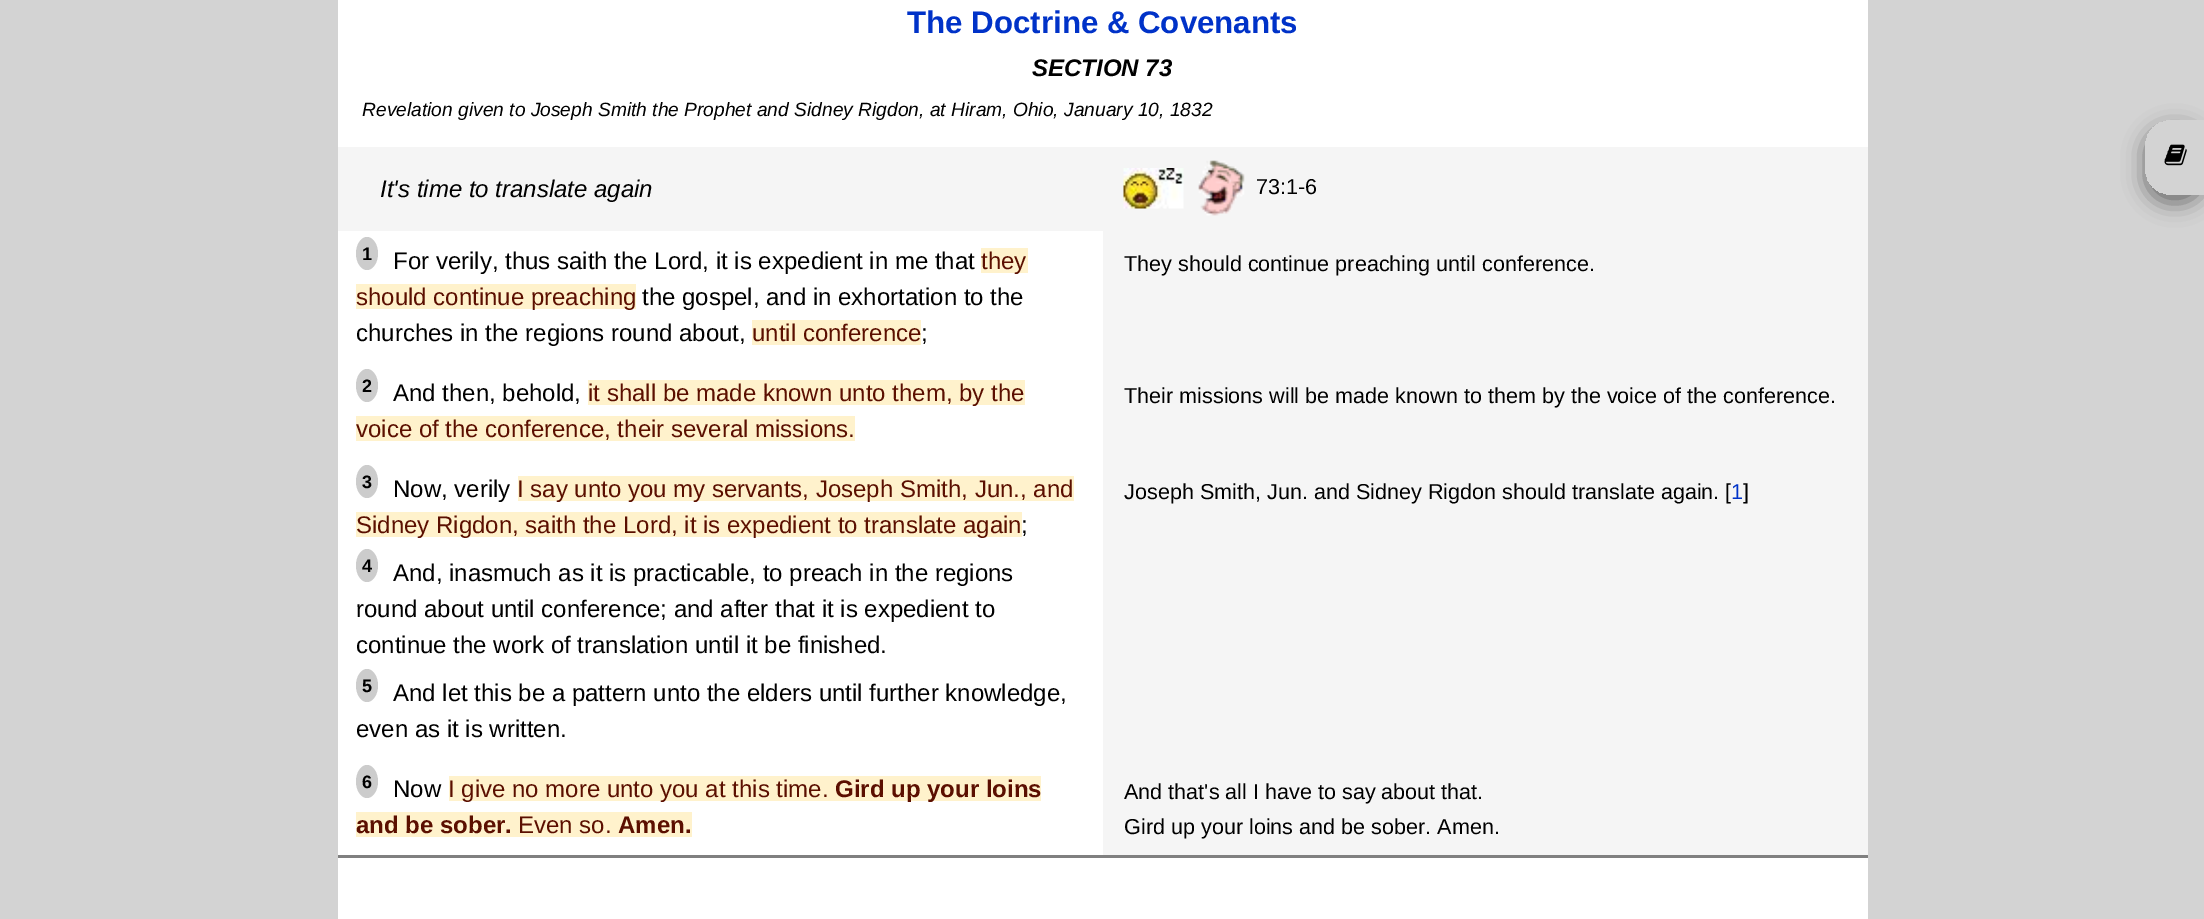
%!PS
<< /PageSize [2204 919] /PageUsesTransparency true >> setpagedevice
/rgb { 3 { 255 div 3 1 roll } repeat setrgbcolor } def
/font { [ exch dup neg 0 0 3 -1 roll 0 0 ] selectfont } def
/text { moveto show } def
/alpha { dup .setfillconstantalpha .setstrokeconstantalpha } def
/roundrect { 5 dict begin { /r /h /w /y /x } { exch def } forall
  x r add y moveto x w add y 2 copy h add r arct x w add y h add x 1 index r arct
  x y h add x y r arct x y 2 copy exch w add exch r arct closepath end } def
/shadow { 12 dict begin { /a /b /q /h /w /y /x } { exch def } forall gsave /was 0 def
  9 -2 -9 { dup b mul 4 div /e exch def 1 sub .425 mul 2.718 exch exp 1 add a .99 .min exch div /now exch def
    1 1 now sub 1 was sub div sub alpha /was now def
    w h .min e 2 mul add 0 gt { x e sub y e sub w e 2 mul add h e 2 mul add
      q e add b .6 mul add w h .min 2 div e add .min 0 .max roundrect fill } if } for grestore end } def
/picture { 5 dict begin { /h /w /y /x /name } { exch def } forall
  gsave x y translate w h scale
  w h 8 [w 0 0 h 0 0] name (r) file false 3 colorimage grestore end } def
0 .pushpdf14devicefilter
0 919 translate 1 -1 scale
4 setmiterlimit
211 211 211 rgb
0 0 2204 919 rectfill
255 255 255 rgb
338 0 1530 147 rectfill
245 245 245 rgb
338 147 1530 84 rectfill
(img_01.rgb) 1123 168 61 41 picture
(img_02.rgb) 1198 160 47 56 picture
255 255 255 rgb
338 231 765 624 rectfill
204 204 204 rgb
367 237 moveto 6 0 11 7.5 11 16.5 rcurveto 0 9 -5 16.5 -11 16.5 rcurveto -6 0 -11 -7.5 -11 -16.5 rcurveto 0 -9 5 -16.5 11 -16.5 rcurveto closepath fill
255 242 204 rgb
981 248 47 25 rectfill
356 284 280 25 rectfill
752 320 169 25 rectfill
245 245 245 rgb
1103 231 765 624 rectfill
204 204 204 rgb
367 369 moveto 6 0 11 7.5 11 16.5 rcurveto 0 9 -5 16.5 -11 16.5 rcurveto -6 0 -11 -7.5 -11 -16.5 rcurveto 0 -9 5 -16.5 11 -16.5 rcurveto closepath fill
255 242 204 rgb
588 380 437 25 rectfill
356 416 499 25 rectfill
204 204 204 rgb
367 465 moveto 6 0 11 7.5 11 16.5 rcurveto 0 9 -5 16.5 -11 16.5 rcurveto -6 0 -11 -7.5 -11 -16.5 rcurveto 0 -9 5 -16.5 11 -16.5 rcurveto closepath fill
255 242 204 rgb
518 476 556 25 rectfill
356 512 666 25 rectfill
204 204 204 rgb
367 549 moveto 6 0 11 7.5 11 16.5 rcurveto 0 9 -5 16.5 -11 16.5 rcurveto -6 0 -11 -7.5 -11 -16.5 rcurveto 0 -9 5 -16.5 11 -16.5 rcurveto closepath fill
367 669 moveto 6 0 11 7.5 11 16.5 rcurveto 0 9 -5 16.5 -11 16.5 rcurveto -6 0 -11 -7.5 -11 -16.5 rcurveto 0 -9 5 -16.5 11 -16.5 rcurveto closepath fill
367 765 moveto 6 0 11 7.5 11 16.5 rcurveto 0 9 -5 16.5 -11 16.5 rcurveto -6 0 -11 -7.5 -11 -16.5 rcurveto 0 -9 5 -16.5 11 -16.5 rcurveto closepath fill
255 242 204 rgb
449 776 592 25 rectfill
356 812 336 25 rectfill
255 255 255 rgb
338 858 1530 61 rectfill
128 128 128 rgb
338 855 1530 3 rectfill
gsave
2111 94 moveto 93 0 rlineto 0 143 rlineto -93 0 rlineto closepath 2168 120 moveto 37 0 rlineto 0 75 rlineto -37 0 rlineto -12.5 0 -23 -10.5 -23 -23 rcurveto 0 -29 rlineto 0 -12.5 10.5 -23 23 -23 rcurveto closepath eoclip newpath
0 0 0 rgb
2145 128 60 75 23 11 0.5 shadow
grestore
(img_03.rgb) 2164 144 23 22 picture
/LiberationSans-Bold 31.25 font
0 50 200 rgb
(The Doctrine & Covenants) 907 33 text
/LiberationSans-BoldItalic 24 font
0 0 0 rgb
(SECTION 73) 1032 76 text
/LiberationSans-Italic 19.2 font
(Revelation given to Joseph Smith the Prophet and Sidney Rigdon, at Hiram, Ohio, January 10, 1832) 362 116 text
/LiberationSans-Italic 24 font
(It's time to translate again) 380 197 text
/LiberationSans-Regular 21.6 font
(73:1-6) 1256 194 text
/LiberationSans-Bold 18 font
(1) 362 260 text
/LiberationSans-Regular 24 font
(For verily, thus saith the Lord, it is expedient in me that) 393 269 text
91 15 0 rgb
(they) 981 269 text
(should continue preaching) 356 305 text
0 0 0 rgb
(the gospel, and in exhortation to the) 642 305 text
(churches in the regions round about,) 356 341 text
91 15 0 rgb
(until conference) 752 341 text
0 0 0 rgb
(;) 921 341 text
/LiberationSans-Regular 21.6 font
(They should continue preaching until conference.) 1124 271 text
/LiberationSans-Bold 18 font
(2) 362 392 text
/LiberationSans-Regular 24 font
(And then, behold,) 393 401 text
91 15 0 rgb
(it shall be made known unto them, by the) 588 401 text
(voice of the conference, their several missions.) 356 437 text
/LiberationSans-Regular 21.6 font
0 0 0 rgb
(Their missions will be made known to them by the voice of the conference.) 1124 403 text
/LiberationSans-Bold 18 font
(3) 362 488 text
/LiberationSans-Regular 24 font
(Now, verily) 393 497 text
91 15 0 rgb
(I say unto you my servants, Joseph Smith, Jun., and) 517 497 text
(Sidney Rigdon, saith the Lord, it is expedient to translate again) 356 533 text
0 0 0 rgb
(;) 1021 533 text
/LiberationSans-Bold 18 font
(4) 362 572 text
/LiberationSans-Regular 24 font
(And, inasmuch as it is practicable, to preach in the regions) 393 581 text
(round about until conference; and after that it is expedient to) 356 617 text
(continue the work of translation until it be finished.) 356 653 text
/LiberationSans-Bold 18 font
(5) 362 692 text
/LiberationSans-Regular 24 font
(And let this be a pattern unto the elders until further knowledge,) 393 701 text
(even as it is written.) 356 737 text
/LiberationSans-Regular 21.6 font
(Joseph Smith, Jun. and Sidney Rigdon should translate again. [) 1124 499 text
0 50 200 rgb
(1) 1731 499 text
0 0 0 rgb
(]) 1743 499 text
/LiberationSans-Bold 18 font
(6) 362 788 text
/LiberationSans-Regular 24 font
(Now) 393 797 text
91 15 0 rgb
(I give no more unto you at this time.) 448 797 text
/LiberationSans-Bold 24 font
(Gird up your loins) 835 797 text
(and be sober.) 356 833 text
/LiberationSans-Regular 24 font
(Even so.) 518 833 text
/LiberationSans-Bold 24 font
(Amen.) 618 833 text
/LiberationSans-Regular 21.6 font
0 0 0 rgb
(And that's all I have to say about that.) 1124 799 text
(Gird up your loins and be sober. Amen.) 1124 834 text
.poppdf14devicefilter showpage
